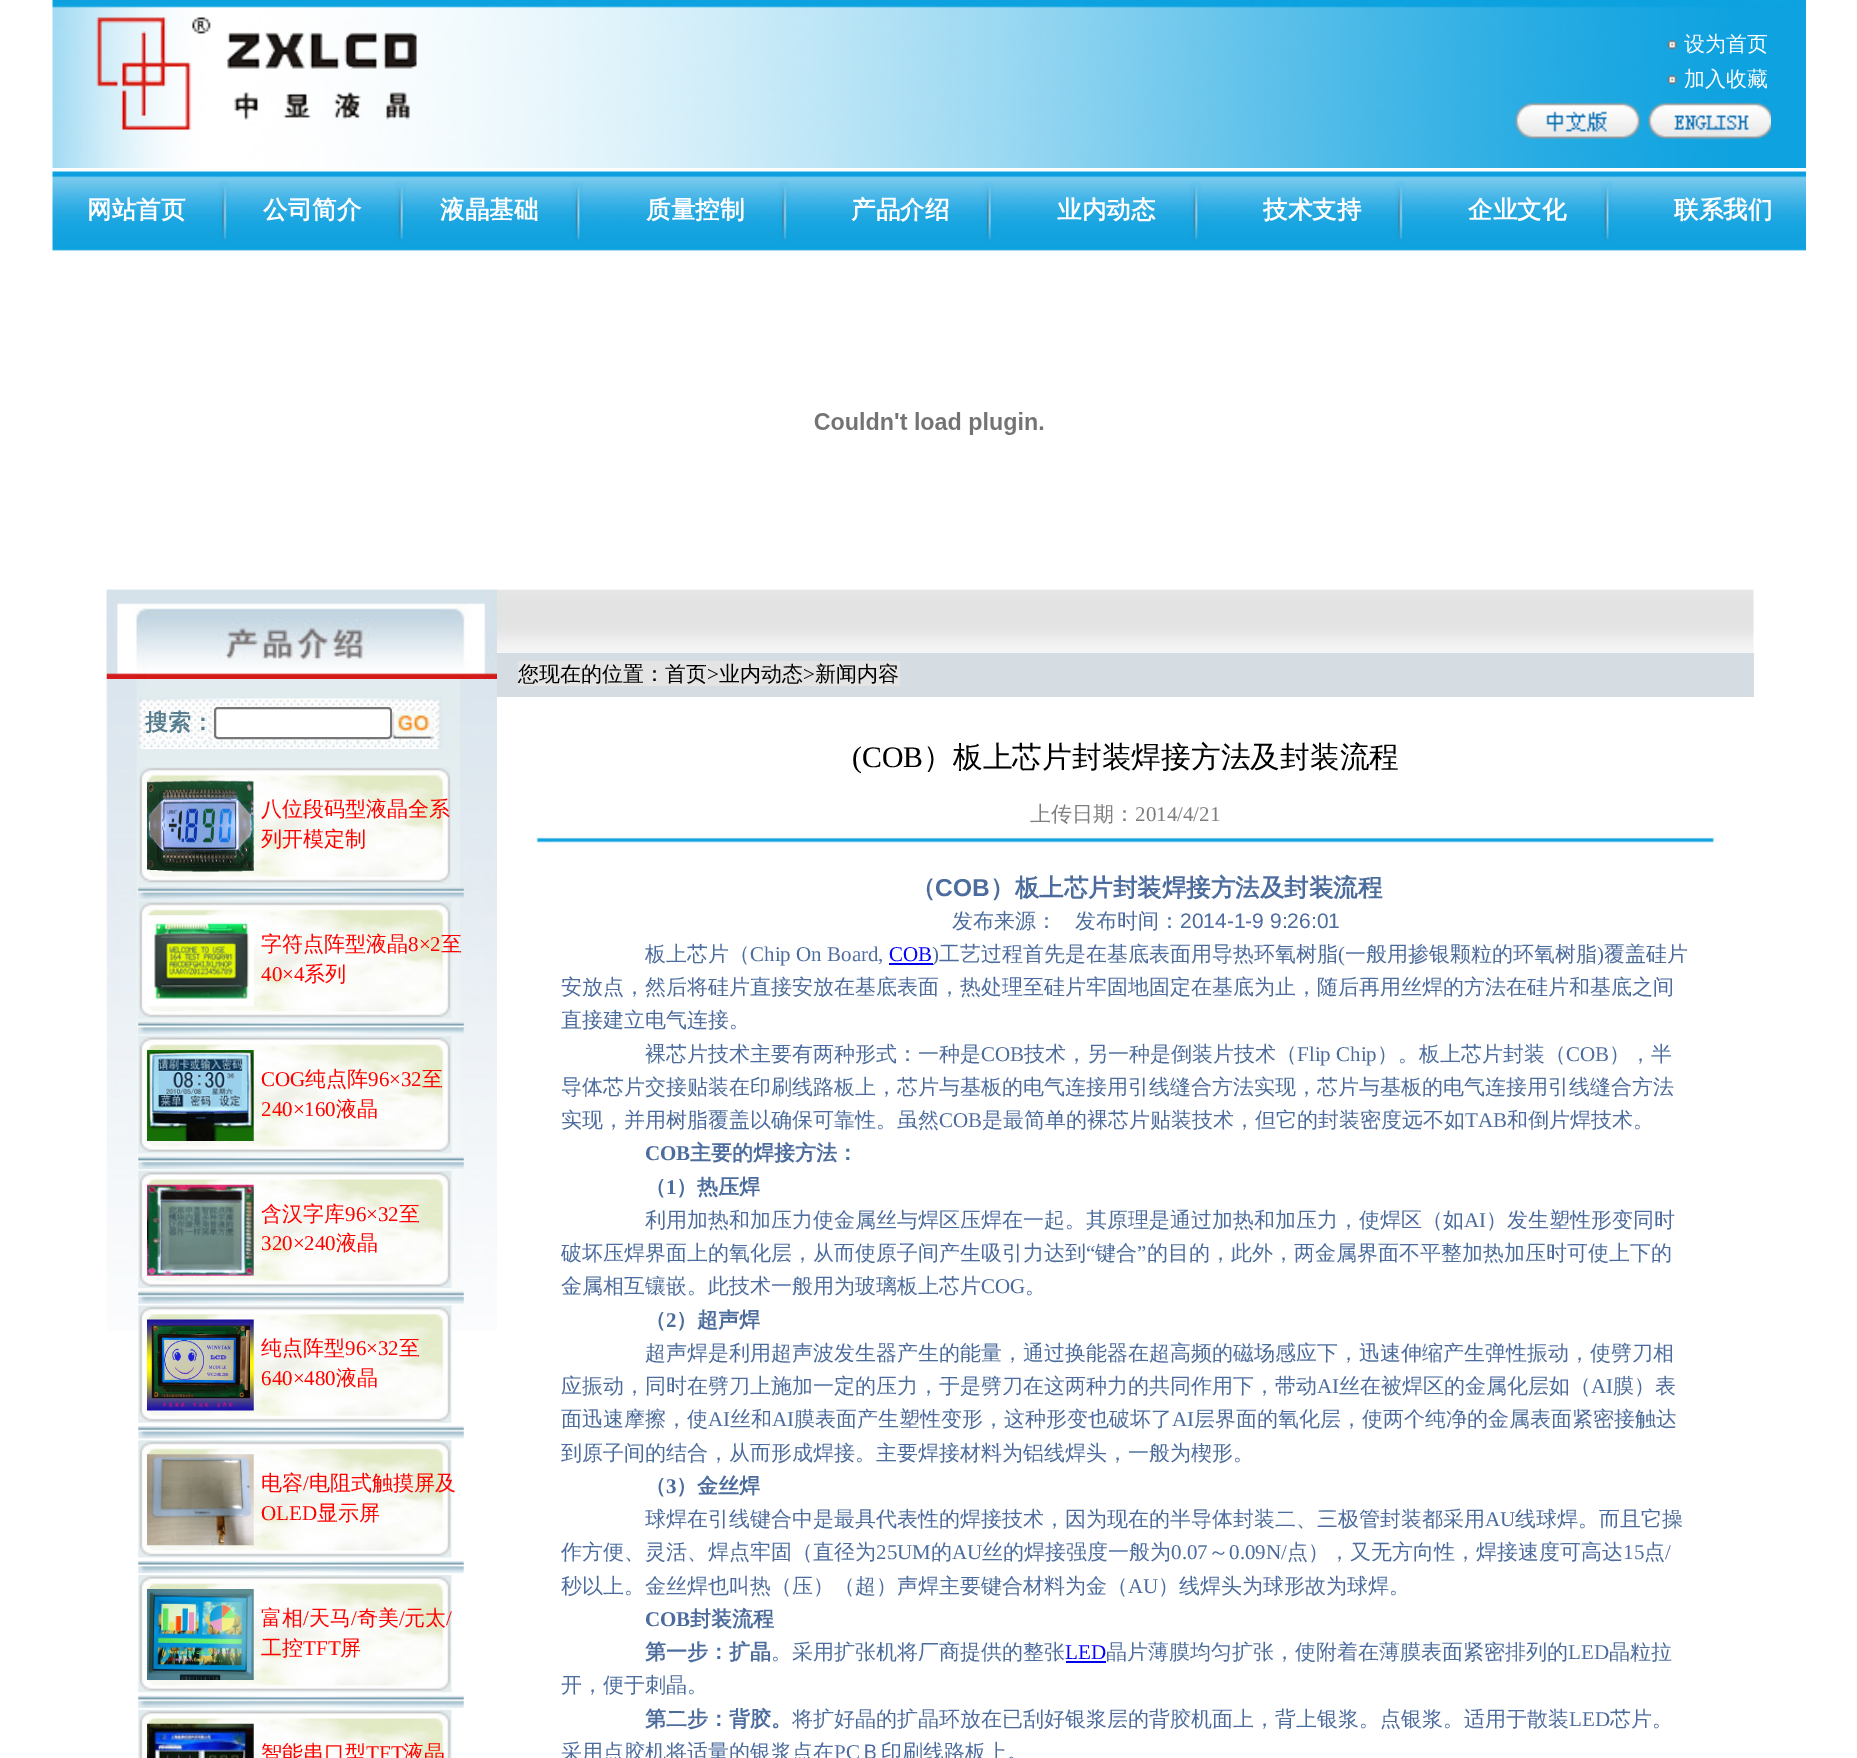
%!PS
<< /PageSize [1857 1758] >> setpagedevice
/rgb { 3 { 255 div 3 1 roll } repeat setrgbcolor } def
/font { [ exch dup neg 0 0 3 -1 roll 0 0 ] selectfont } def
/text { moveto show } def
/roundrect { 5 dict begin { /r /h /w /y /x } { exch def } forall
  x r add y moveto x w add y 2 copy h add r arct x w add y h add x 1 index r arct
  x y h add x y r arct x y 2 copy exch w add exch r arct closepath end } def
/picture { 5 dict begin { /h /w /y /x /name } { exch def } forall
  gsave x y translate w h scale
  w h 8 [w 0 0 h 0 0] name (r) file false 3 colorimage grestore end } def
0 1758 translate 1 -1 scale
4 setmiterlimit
255 255 255 rgb
0 0 1857 1758 rectfill
(img_01.rgb) 52 0 1754 168 picture
(img_02.rgb) 96 17 321 114 picture
(img_03.rgb) 1667 39 10 11 picture
(img_03.rgb) 1667 74 10 11 picture
(img_04.rgb) 1514 100 131 40 picture
(img_05.rgb) 1648 100 123 40 picture
(img_06.rgb) 52 171 1754 80 picture
(img_07.rgb) 219 182 10 59 picture
(img_08.rgb) 395 182 11 59 picture
(img_09.rgb) 572 182 11 59 picture
(img_07.rgb) 779 182 10 59 picture
(img_10.rgb) 983 182 11 59 picture
(img_11.rgb) 1190 182 11 59 picture
(img_07.rgb) 1395 182 10 59 picture
(img_12.rgb) 1601 182 11 59 picture
(img_13.rgb) 814 412 230 23 picture
(img_14.rgb) 106 589 391 742 picture
(img_15.rgb) 106 589 391 90 picture
(img_16.rgb) 138 697 305 52 picture
215 708 176 30 3 roundrect gsave fill grestore
118 118 118 rgb
2 setlinewidth
stroke
(img_17.rgb) 392 708 46 31 picture
(img_18.rgb) 139 767 312 117 picture
(img_19.rgb) 147 780 107 92 picture
(img_20.rgb) 138 887 326 13 picture
(img_21.rgb) 138 901 314 118 picture
(img_22.rgb) 147 915 107 92 picture
(img_23.rgb) 138 1022 326 13 picture
(img_24.rgb) 138 1036 314 118 picture
(img_25.rgb) 147 1050 107 91 picture
(img_26.rgb) 138 1156 326 13 picture
(img_27.rgb) 138 1170 314 118 picture
(img_28.rgb) 147 1184 107 92 picture
(img_29.rgb) 138 1291 326 13 picture
(img_30.rgb) 138 1305 314 118 picture
(img_31.rgb) 147 1319 107 92 picture
(img_32.rgb) 138 1426 326 13 picture
(img_33.rgb) 138 1440 314 118 picture
(img_34.rgb) 147 1454 107 92 picture
(img_35.rgb) 138 1561 326 13 picture
(img_36.rgb) 138 1575 314 118 picture
(img_37.rgb) 147 1589 107 91 picture
(img_38.rgb) 138 1695 326 13 picture
(img_39.rgb) 138 1709 314 49 picture
(img_40.rgb) 147 1723 107 35 picture
(img_41.rgb) 497 589 1257 64 picture
213 220 226 rgb
497 653 1257 44 rectfill
228 228 228 rgb
518 661 382 25 rectfill
(img_42.rgb) 535 836 1182 7 picture
0 0 238 rgb
889 963 44 2 rectfill
1066 1661 40 2 rectfill
/WenQuanYiZenHei-Medium 21 font
255 255 255 rgb
(设为首页) 1684 51 text
(加入收藏) 1684 86 text
/WenQuanYiZenHei-Bold 24.5 font
(网站首页) 87 218 text
(公司简介) 263 218 text
(液晶基础) 440 218 text
(质量控制) 646 218 text
(产品介绍) 851 218 text
(业内动态) 1057 218 text
(技术支持) 1263 218 text
(企业文化) 1468 218 text
(联系我们) 1674 218 text
/WenQuanYiZenHei-Bold 23 font
87 126 142 rgb
(搜索：) 145 730 text
/WenQuanYiZenHei-Medium 21 font
254 2 0 rgb
(八位段码型液晶全系) 261 816 text
(列开模定制) 261 846 text
(字符点阵型液晶) 261 951 text
/LiberationSerif-Regular 21 font
(8×2) 408 951 text
/WenQuanYiZenHei-Medium 21 font
(至) 441 951 text
/LiberationSerif-Regular 21 font
(40×4) 261 981 text
/WenQuanYiZenHei-Medium 21 font
(系列) 304 981 text
/LiberationSerif-Regular 21 font
(COG) 261 1086 text
/WenQuanYiZenHei-Medium 21 font
(纯点阵) 305 1086 text
/LiberationSerif-Regular 21 font
(96×32) 368 1086 text
/WenQuanYiZenHei-Medium 21 font
(至) 422 1086 text
/LiberationSerif-Regular 21 font
(240×160) 261 1116 text
/WenQuanYiZenHei-Medium 21 font
(液晶) 336 1116 text
(含汉字库) 261 1221 text
/LiberationSerif-Regular 21 font
(96×32) 345 1221 text
/WenQuanYiZenHei-Medium 21 font
(至) 399 1221 text
/LiberationSerif-Regular 21 font
(320×240) 261 1250 text
/WenQuanYiZenHei-Medium 21 font
(液晶) 336 1250 text
(纯点阵型) 261 1355 text
/LiberationSerif-Regular 21 font
(96×32) 345 1355 text
/WenQuanYiZenHei-Medium 21 font
(至) 399 1355 text
/LiberationSerif-Regular 21 font
(640×480) 261 1385 text
/WenQuanYiZenHei-Medium 21 font
(液晶) 336 1385 text
(电容) 261 1490 text
/LiberationSerif-Regular 21 font
(/) 303 1490 text
/WenQuanYiZenHei-Medium 21 font
(电阻式触摸屏及) 309 1490 text
/LiberationSerif-Regular 21 font
(OLED) 261 1520 text
/WenQuanYiZenHei-Medium 21 font
(显示屏) 317 1520 text
(富相) 261 1625 text
/LiberationSerif-Regular 21 font
(/) 303 1625 text
/WenQuanYiZenHei-Medium 21 font
(天马) 309 1625 text
/LiberationSerif-Regular 21 font
(/) 351 1625 text
/WenQuanYiZenHei-Medium 21 font
(奇美) 357 1625 text
/LiberationSerif-Regular 21 font
(/) 399 1625 text
/WenQuanYiZenHei-Medium 21 font
(元太) 404 1625 text
/LiberationSerif-Regular 21 font
(/) 446 1625 text
/WenQuanYiZenHei-Medium 21 font
(工控) 261 1655 text
/LiberationSerif-Regular 21 font
(TFT) 303 1655 text
/WenQuanYiZenHei-Medium 21 font
(屏) 340 1655 text
(智能串口型) 261 1760 text
/LiberationSerif-Regular 21 font
(TFT) 366 1760 text
/WenQuanYiZenHei-Medium 21 font
(液晶) 403 1760 text
0 0 0 rgb
(您现在的位置：首页) 518 681 text
/LiberationSerif-Regular 21 font
(>) 707 681 text
/WenQuanYiZenHei-Medium 21 font
(业内动态) 719 681 text
/LiberationSerif-Regular 21 font
(>) 803 681 text
/WenQuanYiZenHei-Medium 21 font
(新闻内容) 815 681 text
/LiberationSerif-Regular 29.75 font
(\(COB) 852 767 text
/WenQuanYiZenHei-Medium 29.75 font
(）板上芯片封装焊接方法及封装流程) 923 767 text
/WenQuanYiZenHei-Medium 21 font
126 126 126 rgb
(上传日期：) 1030 821 text
/LiberationSerif-Regular 21 font
(2014/4/21) 1135 821 text
/WenQuanYiZenHei-Bold 24.5 font
76 108 158 rgb
(（) 911 896 text
/LiberationSans-Bold 24.5 font
(COB) 935 896 text
/WenQuanYiZenHei-Bold 24.5 font
(）板上芯片封装焊接方法及封装流程) 990 896 text
/WenQuanYiZenHei-Medium 21 font
(发布来源：) 952 928 text
(发布时间：) 1075 928 text
/LiberationSans-Regular 21 font
(2014-1-9 9:26:01) 1180 928 text
/WenQuanYiZenHei-Medium 21 font
(板上芯片（) 645 961 text
/LiberationSerif-Regular 21 font
(Chip On Board,) 750 961 text
0 0 255 rgb
(COB) 889 961 text
76 108 158 rgb
(\)) 932 961 text
/WenQuanYiZenHei-Medium 21 font
(工艺过程首先是在基底表面用导热环氧树脂) 939 961 text
/LiberationSerif-Regular 21 font
(\() 1338 961 text
/WenQuanYiZenHei-Medium 21 font
(一般用掺银颗粒的环氧树脂) 1345 961 text
/LiberationSerif-Regular 21 font
(\)) 1597 961 text
/WenQuanYiZenHei-Medium 21 font
(覆盖硅片) 1604 961 text
(安放点，然后将硅片直接安放在基底表面，热处理至硅片牢固地固定在基底为止，随后再用丝焊的方法在硅片和基底之间) 561 994 text
(直接建立电气连接。) 561 1027 text
(裸芯片技术主要有两种形式：一种是) 645 1061 text
/LiberationSerif-Regular 21 font
(COB) 981 1061 text
/WenQuanYiZenHei-Medium 21 font
(技术，另一种是倒装片技术（) 1024 1061 text
/LiberationSerif-Regular 21 font
(Flip Chip) 1297 1061 text
/WenQuanYiZenHei-Medium 21 font
(）。板上芯片封装（) 1377 1061 text
/LiberationSerif-Regular 21 font
(COB) 1566 1061 text
/WenQuanYiZenHei-Medium 21 font
(），半) 1609 1061 text
(导体芯片交接贴装在印刷线路板上，芯片与基板的电气连接用引线缝合方法实现，芯片与基板的电气连接用引线缝合方法) 561 1094 text
(实现，并用树脂覆盖以确保可靠性。虽然) 561 1127 text
/LiberationSerif-Regular 21 font
(COB) 939 1127 text
/WenQuanYiZenHei-Medium 21 font
(是最简单的裸芯片贴装技术，但它的封装密度远不如) 982 1127 text
/LiberationSerif-Regular 21 font
(TAB) 1465 1127 text
/WenQuanYiZenHei-Medium 21 font
(和倒片焊技术。) 1507 1127 text
/LiberationSerif-Bold 21 font
(COB) 645 1160 text
/WenQuanYiZenHei-Bold 21 font
(主要的焊接方法：) 690 1160 text
(（) 645 1194 text
/LiberationSerif-Bold 21 font
(1) 666 1194 text
/WenQuanYiZenHei-Bold 21 font
(）热压焊) 676 1194 text
/WenQuanYiZenHei-Medium 21 font
(利用加热和加压力使金属丝与焊区压焊在一起。其原理是通过加热和加压力，使焊区（如) 645 1227 text
/LiberationSerif-Regular 21 font
(AI) 1464 1227 text
/WenQuanYiZenHei-Medium 21 font
(）发生塑性形变同时) 1486 1227 text
(破坏压焊界面上的氧化层，从而使原子间产生吸引力达到) 561 1260 text
/LiberationSerif-Regular 21 font
(“) 1086 1260 text
/WenQuanYiZenHei-Medium 21 font
(键合) 1095 1260 text
/LiberationSerif-Regular 21 font
(”) 1137 1260 text
/WenQuanYiZenHei-Medium 21 font
(的目的，此外，两金属界面不平整加热加压时可使上下的) 1147 1260 text
(金属相互镶嵌。此技术一般用为玻璃板上芯片) 561 1293 text
/LiberationSerif-Regular 21 font
(COG) 981 1293 text
/WenQuanYiZenHei-Medium 21 font
(。) 1025 1293 text
/WenQuanYiZenHei-Bold 21 font
(（) 645 1327 text
/LiberationSerif-Bold 21 font
(2) 666 1327 text
/WenQuanYiZenHei-Bold 21 font
(）超声焊) 676 1327 text
/WenQuanYiZenHei-Medium 21 font
(超声焊是利用超声波发生器产生的能量，通过换能器在超高频的磁场感应下，迅速伸缩产生弹性振动，使劈刀相) 645 1360 text
(应振动，同时在劈刀上施加一定的压力，于是劈刀在这两种力的共同作用下，带动) 561 1393 text
/LiberationSerif-Regular 21 font
(AI) 1317 1393 text
/WenQuanYiZenHei-Medium 21 font
(丝在被焊区的金属化层如（) 1339 1393 text
/LiberationSerif-Regular 21 font
(AI) 1591 1393 text
/WenQuanYiZenHei-Medium 21 font
(膜）表) 1613 1393 text
(面迅速摩擦，使) 561 1426 text
/LiberationSerif-Regular 21 font
(AI) 708 1426 text
/WenQuanYiZenHei-Medium 21 font
(丝和) 730 1426 text
/LiberationSerif-Regular 21 font
(AI) 772 1426 text
/WenQuanYiZenHei-Medium 21 font
(膜表面产生塑性变形，这种形变也破坏了) 794 1426 text
/LiberationSerif-Regular 21 font
(AI) 1172 1426 text
/WenQuanYiZenHei-Medium 21 font
(层界面的氧化层，使两个纯净的金属表面紧密接触达) 1194 1426 text
(到原子间的结合，从而形成焊接。主要焊接材料为铝线焊头，一般为楔形。) 561 1460 text
/WenQuanYiZenHei-Bold 21 font
(（) 645 1493 text
/LiberationSerif-Bold 21 font
(3) 666 1493 text
/WenQuanYiZenHei-Bold 21 font
(）金丝焊) 676 1493 text
/WenQuanYiZenHei-Medium 21 font
(球焊在引线键合中是最具代表性的焊接技术，因为现在的半导体封装二、三极管封装都采用) 645 1526 text
/LiberationSerif-Regular 21 font
(AU) 1485 1526 text
/WenQuanYiZenHei-Medium 21 font
(线球焊。而且它操) 1515 1526 text
(作方便、灵活、焊点牢固（直径为) 561 1559 text
/LiberationSerif-Regular 21 font
(25UM) 876 1559 text
/WenQuanYiZenHei-Medium 21 font
(的) 931 1559 text
/LiberationSerif-Regular 21 font
(AU) 952 1559 text
/WenQuanYiZenHei-Medium 21 font
(丝的焊接强度一般为) 982 1559 text
/LiberationSerif-Regular 21 font
(0.07) 1171 1559 text
/WenQuanYiZenHei-Medium 21 font
(～) 1208 1559 text
/LiberationSerif-Regular 21 font
(0.09N/) 1229 1559 text
/WenQuanYiZenHei-Medium 21 font
(点），又无方向性，焊接速度可高达) 1287 1559 text
/LiberationSerif-Regular 21 font
(15) 1623 1559 text
/WenQuanYiZenHei-Medium 21 font
(点) 1644 1559 text
/LiberationSerif-Regular 21 font
(/) 1665 1559 text
/WenQuanYiZenHei-Medium 21 font
(秒以上。金丝焊也叫热（压）（超）声焊主要键合材料为金（) 561 1593 text
/LiberationSerif-Regular 21 font
(AU) 1128 1593 text
/WenQuanYiZenHei-Medium 21 font
(）线焊头为球形故为球焊。) 1158 1593 text
/LiberationSerif-Bold 21 font
(COB) 645 1626 text
/WenQuanYiZenHei-Bold 21 font
(封装流程) 690 1626 text
(第一步：扩晶) 645 1659 text
/WenQuanYiZenHei-Medium 21 font
(。采用扩张机将厂商提供的整张) 771 1659 text
/LiberationSerif-Regular 21 font
0 0 255 rgb
(LED) 1065 1659 text
/WenQuanYiZenHei-Medium 21 font
76 108 158 rgb
(晶片薄膜均匀扩张，使附着在薄膜表面紧密排列的) 1106 1659 text
/LiberationSerif-Regular 21 font
(LED) 1568 1659 text
/WenQuanYiZenHei-Medium 21 font
(晶粒拉) 1609 1659 text
(开，便于刺晶。) 561 1692 text
/WenQuanYiZenHei-Bold 21 font
(第二步：背胶。) 645 1726 text
/WenQuanYiZenHei-Medium 21 font
(将扩好晶的扩晶环放在已刮好银浆层的背胶机面上，背上银浆。点银浆。适用于散装) 792 1726 text
/LiberationSerif-Regular 21 font
(LED) 1569 1726 text
/WenQuanYiZenHei-Medium 21 font
(芯片。) 1610 1726 text
(采用点胶机将适量的银浆点在) 561 1759 text
/LiberationSerif-Regular 21 font
(PC) 834 1759 text
/WenQuanYiZenHei-Medium 21 font
(Ｂ印刷线路板上。) 860 1759 text
showpage
